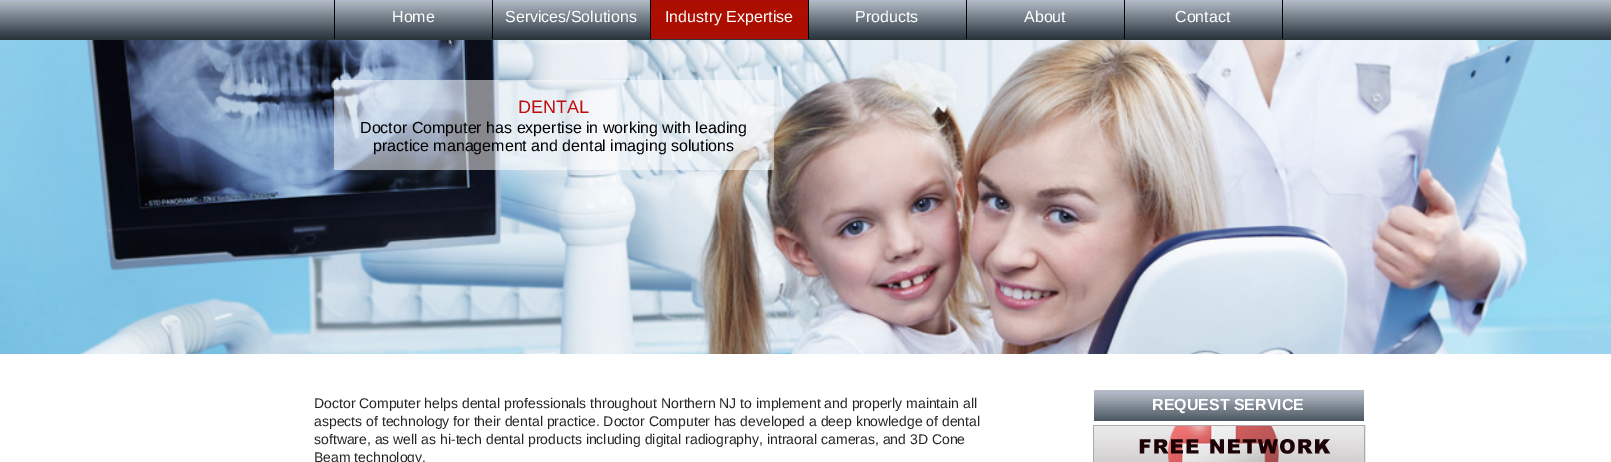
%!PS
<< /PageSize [1611 462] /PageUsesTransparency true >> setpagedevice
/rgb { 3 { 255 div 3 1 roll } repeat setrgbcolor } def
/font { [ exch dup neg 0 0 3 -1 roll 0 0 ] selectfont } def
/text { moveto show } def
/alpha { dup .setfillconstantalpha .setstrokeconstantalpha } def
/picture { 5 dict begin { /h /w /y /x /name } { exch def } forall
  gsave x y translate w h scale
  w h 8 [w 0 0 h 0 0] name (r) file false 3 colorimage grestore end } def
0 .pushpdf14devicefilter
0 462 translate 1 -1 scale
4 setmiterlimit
255 255 255 rgb
0 0 1611 462 rectfill
(img_01.rgb) 0 0 1611 40 picture
0 0 0 rgb
334 0 1 39 rectfill
492 0 1 39 rectfill
(img_02.rgb) 651 0 157 39 picture
650 0 1 39 rectfill
808 0 1 39 rectfill
966 0 1 39 rectfill
1282 0 1 39 rectfill
1124 0 1 39 rectfill
(img_03.rgb) 0 40 1611 314 picture
0.5 alpha
255 255 255 rgb
334 80 440 90 rectfill
1 alpha
(img_04.rgb) 1094 390 270 31 picture
170 170 170 rgb
1093.5 425.5 271 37 rectstroke
(img_05.rgb) 1094 426 270 36 picture
/LiberationSans-Regular 16 font
255 255 255 rgb
(Home) 392 22 text
(Services/Solutions) 505 22 text
(Industry Expertise) 665 22 text
(Products) 855 22 text
(About) 1024 22 text
(Contact) 1175 22 text
/LiberationSans-Regular 18 font
192 12 13 rgb
(DENTAL) 518 113 text
/LiberationSans-Regular 16 font
0 0 0 rgb
(Doctor Computer has expertise in working with leading) 360 133 text
(practice management and dental imaging solutions) 373 151 text
/LiberationSans-Regular 14 font
38 37 37 rgb
(Doctor Computer helps dental professionals throughout Northern NJ to implement and properly maintain all) 314 408 text
(aspects of technology for their dental practice. Doctor Computer has developed a deep knowledge of dental) 314 426 text
(software, as well as hi-tech dental products including digital radiography, intraoral cameras, and 3D Cone) 314 444 text
(Beam technology.) 314 462 text
/LiberationSans-Bold 16 font
255 255 255 rgb
(REQUEST SERVICE) 1152 410 text
.poppdf14devicefilter showpage
